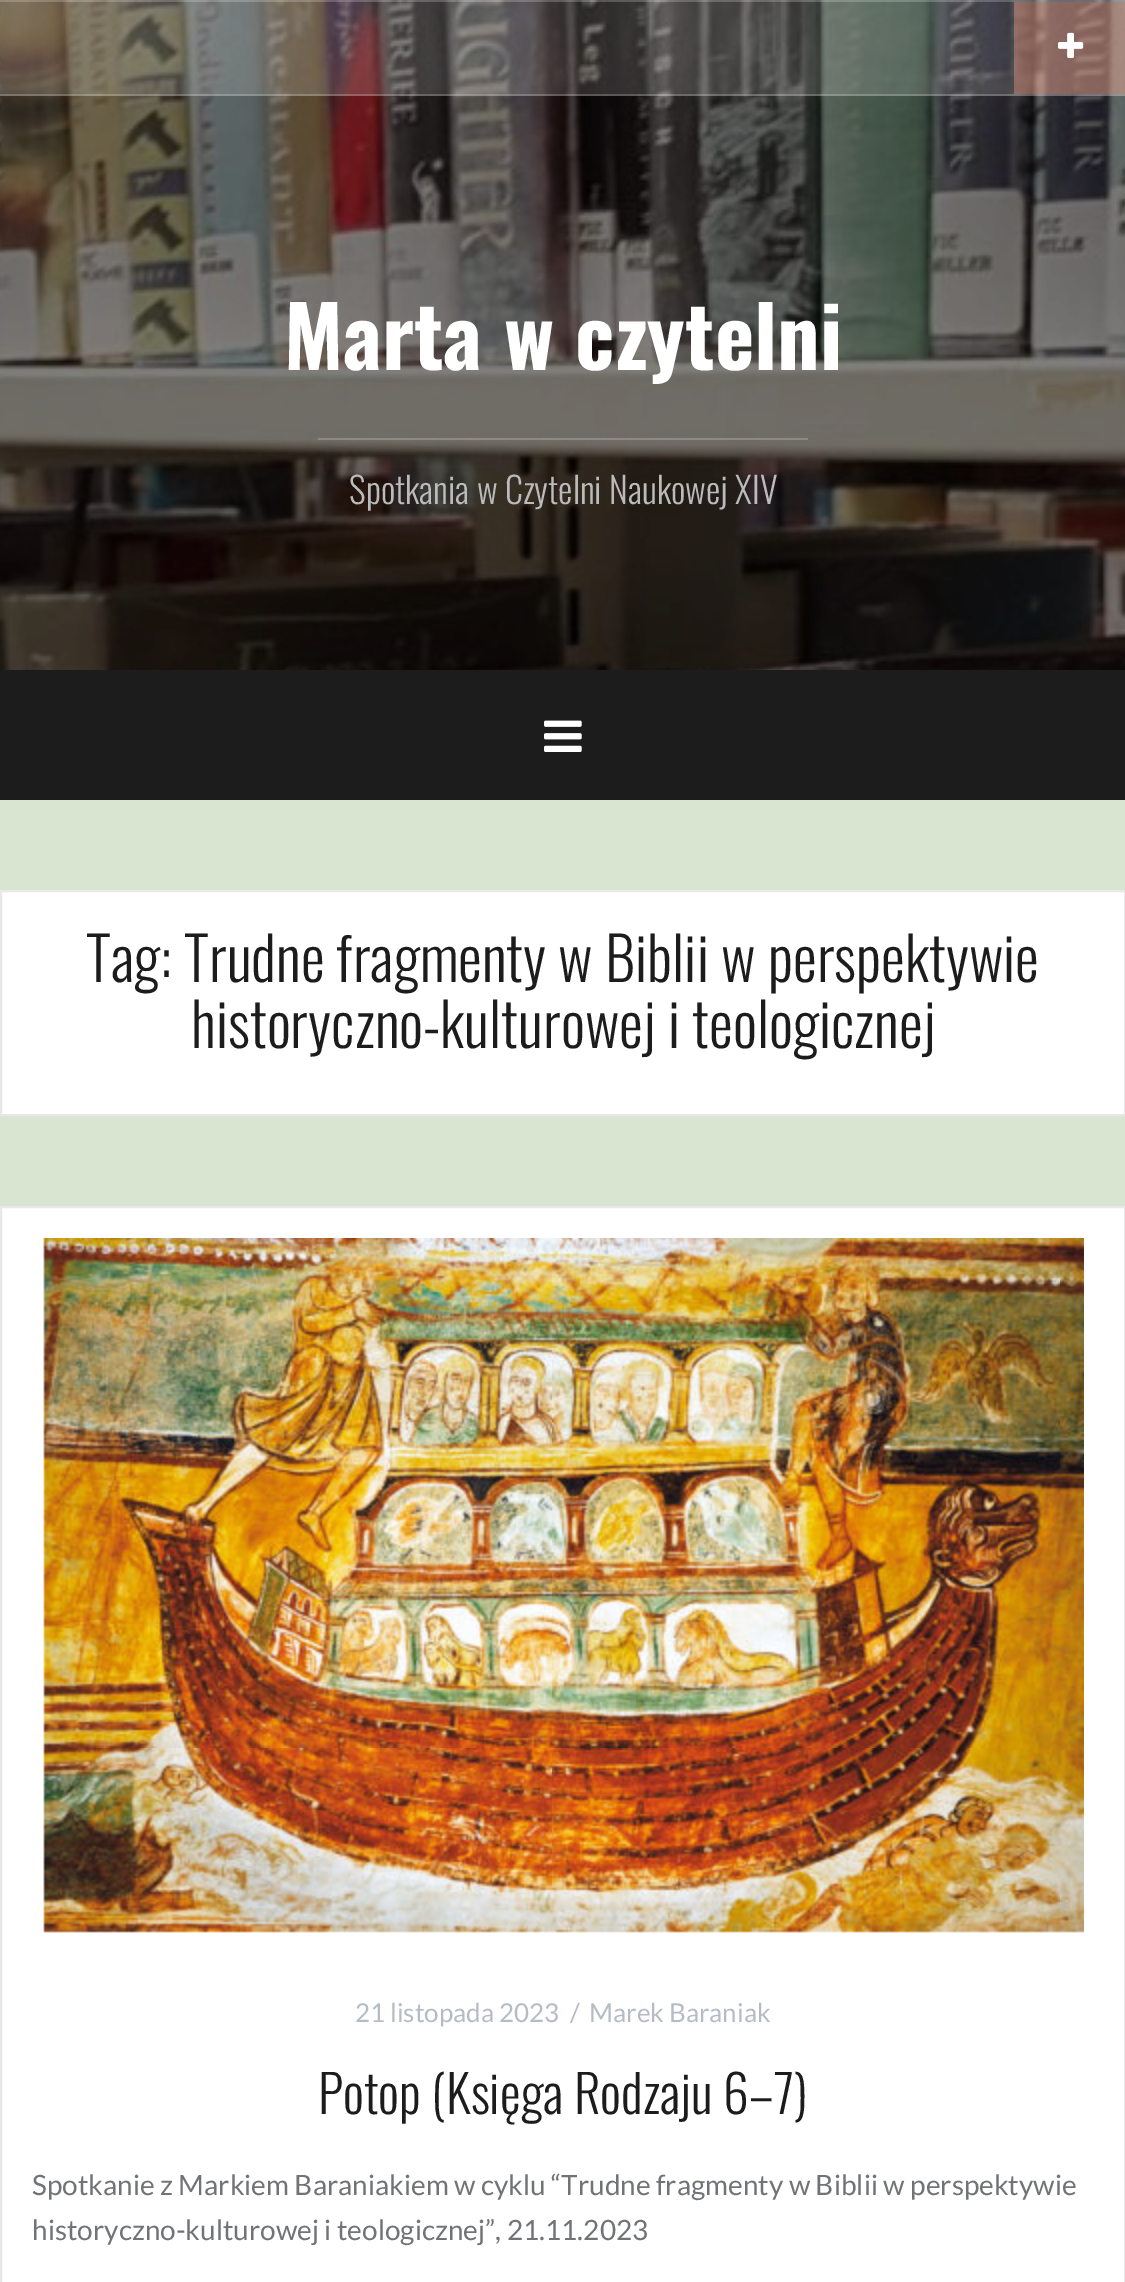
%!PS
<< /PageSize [1125 2282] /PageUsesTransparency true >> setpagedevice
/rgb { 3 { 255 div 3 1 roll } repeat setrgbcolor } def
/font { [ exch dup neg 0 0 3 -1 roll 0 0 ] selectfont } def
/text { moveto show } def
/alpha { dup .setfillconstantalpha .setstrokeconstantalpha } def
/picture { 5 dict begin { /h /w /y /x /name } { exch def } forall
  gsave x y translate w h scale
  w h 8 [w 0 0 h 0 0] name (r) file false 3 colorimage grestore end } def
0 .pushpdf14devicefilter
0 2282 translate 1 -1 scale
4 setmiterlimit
217 229 208 rgb
0 0 1125 2282 rectfill
(img_01.rgb) 0 0 1125 670 picture
0.15 alpha
255 255 255 rgb
0 0 1125 96 rectfill
0.2 alpha
0 0 1125 2 rectfill
0 94 1125 2 rectfill
0.4 alpha
239 153 127 rgb
1014 2 111 92 rectfill
1 alpha
(img_02.rgb) 1058 32 26 26 picture
0.2 alpha
255 255 255 rgb
318 438 490 2 rectfill
1 alpha
28 28 28 rgb
0 670 1125 130 rectfill
(img_03.rgb) 544 720 38 32 picture
255 255 255 rgb
1 891 moveto 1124 0 rlineto 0 224 rlineto -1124 0 rlineto closepath gsave fill grestore
232 232 232 rgb
2 setlinewidth
stroke
255 255 255 rgb
1 1207 moveto 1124 0 rlineto 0 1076 rlineto -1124 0 rlineto closepath gsave fill grestore
232 232 232 rgb
stroke
(img_04.rgb) 43 1238 1041 695 picture
/Oswald-Bold 84 font
255 255 255 rgb
(Marta w czytelni) 284 370 text
/Oswald-Light 36 font
187 187 187 rgb
(Spotkania w Czytelni Naukowej XIV) 349 504 text
/Oswald-Light 60 font
28 28 28 rgb
(Tag: Trudne fragmenty w Biblii w perspektywie) 86 982 text
(historyczno-kulturowej i teologicznej) 191 1048 text
/Lato-Regular 26 font
181 187 197 rgb
(21 listopada 2023) 355 2022 text
(/) 570 2022 text
(Marek Baraniak) 589 2022 text
/Oswald-Light 52 font
28 28 28 rgb
(Potop \(Księga Rodzaju 6–7\)) 318 2114 text
/Lato-Regular 28 font
113 115 118 rgb
(Spotkanie z Markiem Baraniakiem w cyklu “Trudne fragmenty w Biblii w perspektywie) 32 2195 text
(historyczno-kulturowej i teologicznej”, 21.11.2023) 32 2240 text
.poppdf14devicefilter showpage
